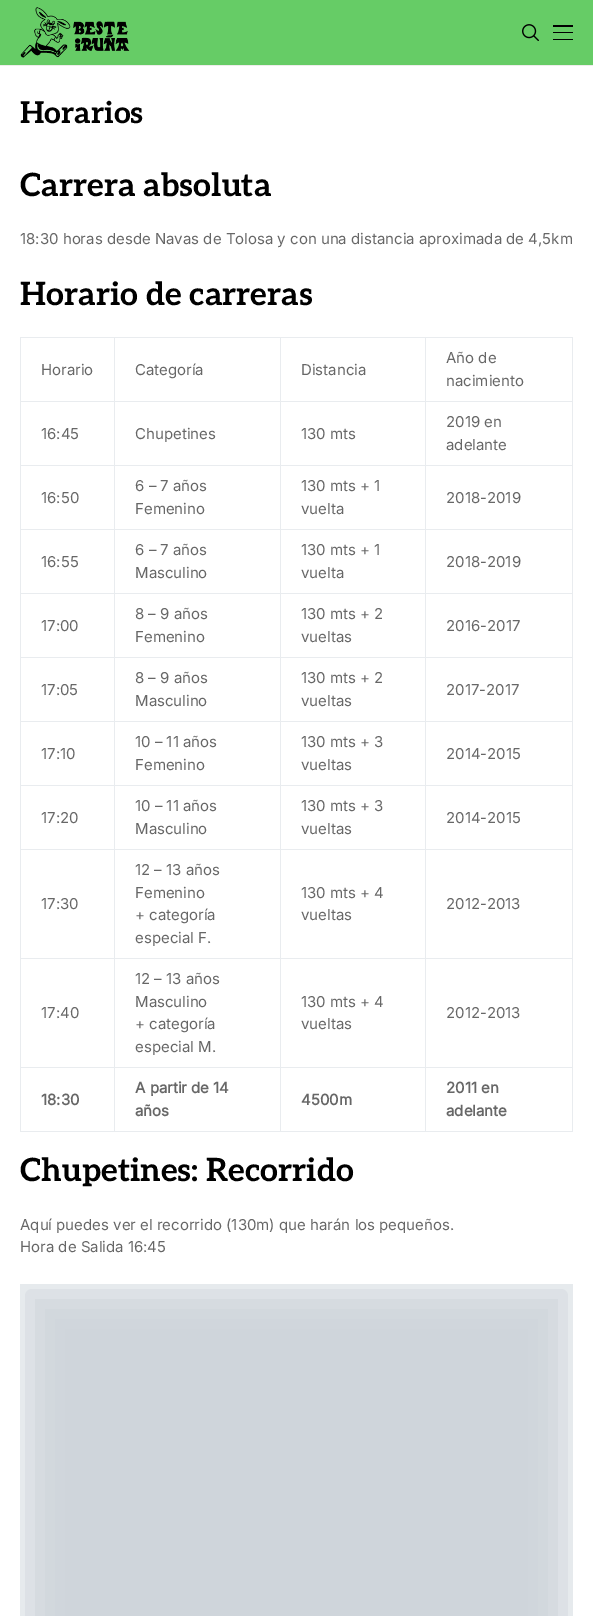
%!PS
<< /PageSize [593 1616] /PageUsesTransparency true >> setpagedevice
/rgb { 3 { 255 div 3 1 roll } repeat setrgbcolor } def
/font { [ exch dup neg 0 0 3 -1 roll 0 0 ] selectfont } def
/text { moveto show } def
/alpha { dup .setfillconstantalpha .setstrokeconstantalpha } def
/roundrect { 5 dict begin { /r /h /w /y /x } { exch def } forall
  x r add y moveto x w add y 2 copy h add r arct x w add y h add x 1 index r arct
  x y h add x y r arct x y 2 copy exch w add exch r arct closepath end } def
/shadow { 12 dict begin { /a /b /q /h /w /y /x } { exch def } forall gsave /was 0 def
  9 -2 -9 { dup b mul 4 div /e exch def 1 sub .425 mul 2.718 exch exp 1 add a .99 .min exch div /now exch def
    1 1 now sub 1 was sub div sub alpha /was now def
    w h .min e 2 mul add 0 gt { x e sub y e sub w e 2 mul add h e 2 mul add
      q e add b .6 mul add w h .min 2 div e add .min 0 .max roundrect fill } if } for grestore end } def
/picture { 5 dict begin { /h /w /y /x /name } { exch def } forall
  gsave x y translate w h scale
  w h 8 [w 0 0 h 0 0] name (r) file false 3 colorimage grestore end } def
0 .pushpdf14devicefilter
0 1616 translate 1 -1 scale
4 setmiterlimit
255 255 255 rgb
0 0 593 1616 rectfill
102 204 102 rgb
0 0 593 65 rectfill
238 237 235 rgb
0 65 593 1 rectfill
(img_01.rgb) 20 7 110 51 picture
(img_02.rgb) 522 24 17 17 picture
0 0 0 rgb
553 25 20 2 rectfill
553 32 20 1 rectfill
553 39 20 1 rectfill
233 236 239 rgb
425 337 148 1 rectfill
425 401 148 1 rectfill
425 465 148 1 rectfill
425 529 148 1 rectfill
425 593 148 1 rectfill
425 657 148 1 rectfill
425 721 148 1 rectfill
425 785 148 1 rectfill
425 849 148 1 rectfill
425 958 148 1 rectfill
425 1067 148 1 rectfill
572 1067 1 65 rectfill
425 1131 148 1 rectfill
425 1067 1 65 rectfill
280 1067 146 1 rectfill
425 958 1 110 rectfill
280 958 146 1 rectfill
425 849 1 110 rectfill
280 849 146 1 rectfill
425 785 1 65 rectfill
280 785 146 1 rectfill
425 721 1 65 rectfill
280 721 146 1 rectfill
425 657 1 65 rectfill
280 657 146 1 rectfill
425 593 1 65 rectfill
280 593 146 1 rectfill
425 529 1 65 rectfill
280 529 146 1 rectfill
425 465 1 65 rectfill
280 465 146 1 rectfill
425 401 1 65 rectfill
280 401 146 1 rectfill
425 337 1 65 rectfill
280 337 146 1 rectfill
280 1131 146 1 rectfill
280 1067 1 65 rectfill
114 1067 167 1 rectfill
280 958 1 110 rectfill
114 958 167 1 rectfill
280 849 1 110 rectfill
114 849 167 1 rectfill
280 785 1 65 rectfill
114 785 167 1 rectfill
280 721 1 65 rectfill
114 721 167 1 rectfill
280 657 1 65 rectfill
114 657 167 1 rectfill
280 593 1 65 rectfill
114 593 167 1 rectfill
280 529 1 65 rectfill
114 529 167 1 rectfill
280 465 1 65 rectfill
114 465 167 1 rectfill
280 401 1 65 rectfill
114 401 167 1 rectfill
280 337 1 65 rectfill
114 337 167 1 rectfill
114 1131 167 1 rectfill
114 1067 1 65 rectfill
20 1067 95 1 rectfill
114 958 1 110 rectfill
20 958 95 1 rectfill
114 849 1 110 rectfill
20 849 95 1 rectfill
114 785 1 65 rectfill
20 785 95 1 rectfill
114 721 1 65 rectfill
20 721 95 1 rectfill
114 657 1 65 rectfill
20 657 95 1 rectfill
114 593 1 65 rectfill
20 593 95 1 rectfill
114 529 1 65 rectfill
20 529 95 1 rectfill
114 465 1 65 rectfill
20 465 95 1 rectfill
114 401 1 65 rectfill
20 401 95 1 rectfill
114 337 1 65 rectfill
20 337 95 1 rectfill
20 1131 95 1 rectfill
20 1067 1 65 rectfill
20 958 1 110 rectfill
20 849 1 110 rectfill
20 785 1 65 rectfill
20 721 1 65 rectfill
20 657 1 65 rectfill
20 593 1 65 rectfill
20 529 1 65 rectfill
20 465 1 65 rectfill
20 401 1 65 rectfill
20 337 1 65 rectfill
572 958 1 110 rectfill
572 849 1 110 rectfill
572 785 1 65 rectfill
572 721 1 65 rectfill
572 657 1 65 rectfill
572 593 1 65 rectfill
572 529 1 65 rectfill
572 465 1 65 rectfill
572 401 1 65 rectfill
572 337 1 65 rectfill
gsave
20 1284 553 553 rectclip
206 212 218 rgb
20 1284 553 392 0 20 1 shadow
grestore
/Aleo-Bold 30 font
0 0 0 rgb
(Horarios) 20 123 text
/Aleo-Bold 32 font
(Carrera absoluta) 20 196 text
/Inter-Regular 15 font
103 103 103 rgb
(18:30 horas desde Navas de Tolosa y con una distancia aproximada de 4,5km) 20 244 text
/Aleo-Bold 32 font
0 0 0 rgb
(Horario de carreras) 20 305 text
/Inter-Regular 15 font
103 103 103 rgb
(Horario) 41 375 text
(Categoría) 135 375 text
(Distancia) 301 375 text
(Año de) 446 363 text
(nacimiento) 446 386 text
(16:45) 41 439 text
(Chupetines) 135 439 text
(130 mts) 301 439 text
(2019 en) 446 427 text
(adelante) 446 450 text
(16:50) 41 503 text
(6 – 7 años) 135 491 text
(Femenino) 135 514 text
(130 mts + 1) 301 491 text
(vuelta) 301 514 text
(2018-2019) 446 503 text
(16:55) 41 567 text
(6 – 7 años) 135 555 text
(Masculino) 135 578 text
(130 mts + 1) 301 555 text
(vuelta) 301 578 text
(2018-2019) 446 567 text
(17:00) 41 631 text
(8 – 9 años) 135 619 text
(Femenino) 135 642 text
(130 mts + 2) 301 619 text
(vueltas) 301 642 text
(2016-2017) 446 631 text
(17:05) 41 695 text
(8 – 9 años) 135 683 text
(Masculino) 135 706 text
(130 mts + 2) 301 683 text
(vueltas) 301 706 text
(2017-2017) 446 695 text
(17:10) 41 759 text
(10 – 11 años) 135 747 text
(Femenino) 135 770 text
(130 mts + 3) 301 747 text
(vueltas) 301 770 text
(2014-2015) 446 759 text
(17:20) 41 823 text
(10 – 11 años) 135 811 text
(Masculino) 135 834 text
(130 mts + 3) 301 811 text
(vueltas) 301 834 text
(2014-2015) 446 823 text
(17:30) 41 909 text
(12 – 13 años) 135 875 text
(Femenino) 135 898 text
(+ categoría) 135 920 text
(especial F.) 135 943 text
(130 mts + 4) 301 898 text
(vueltas) 301 920 text
(2012-2013) 446 909 text
(17:40) 41 1018 text
(12 – 13 años) 135 984 text
(Masculino) 135 1007 text
(+ categoría) 135 1029 text
(especial M.) 135 1052 text
(130 mts + 4) 301 1007 text
(vueltas) 301 1029 text
(2012-2013) 446 1018 text
/Inter-Bold 15 font
(18:30) 41 1105 text
(A partir de 14) 135 1093 text
(años) 135 1116 text
(4500m) 301 1105 text
(2011 en) 446 1093 text
(adelante) 446 1116 text
/Aleo-Bold 32 font
0 0 0 rgb
(Chupetines: Recorrido) 20 1181 text
/Inter-Regular 15 font
103 103 103 rgb
(Aquí puedes ver el recorrido \(130m\) que harán los pequeños.) 20 1230 text
(Hora de Salida 16:45) 20 1252 text
.poppdf14devicefilter showpage
